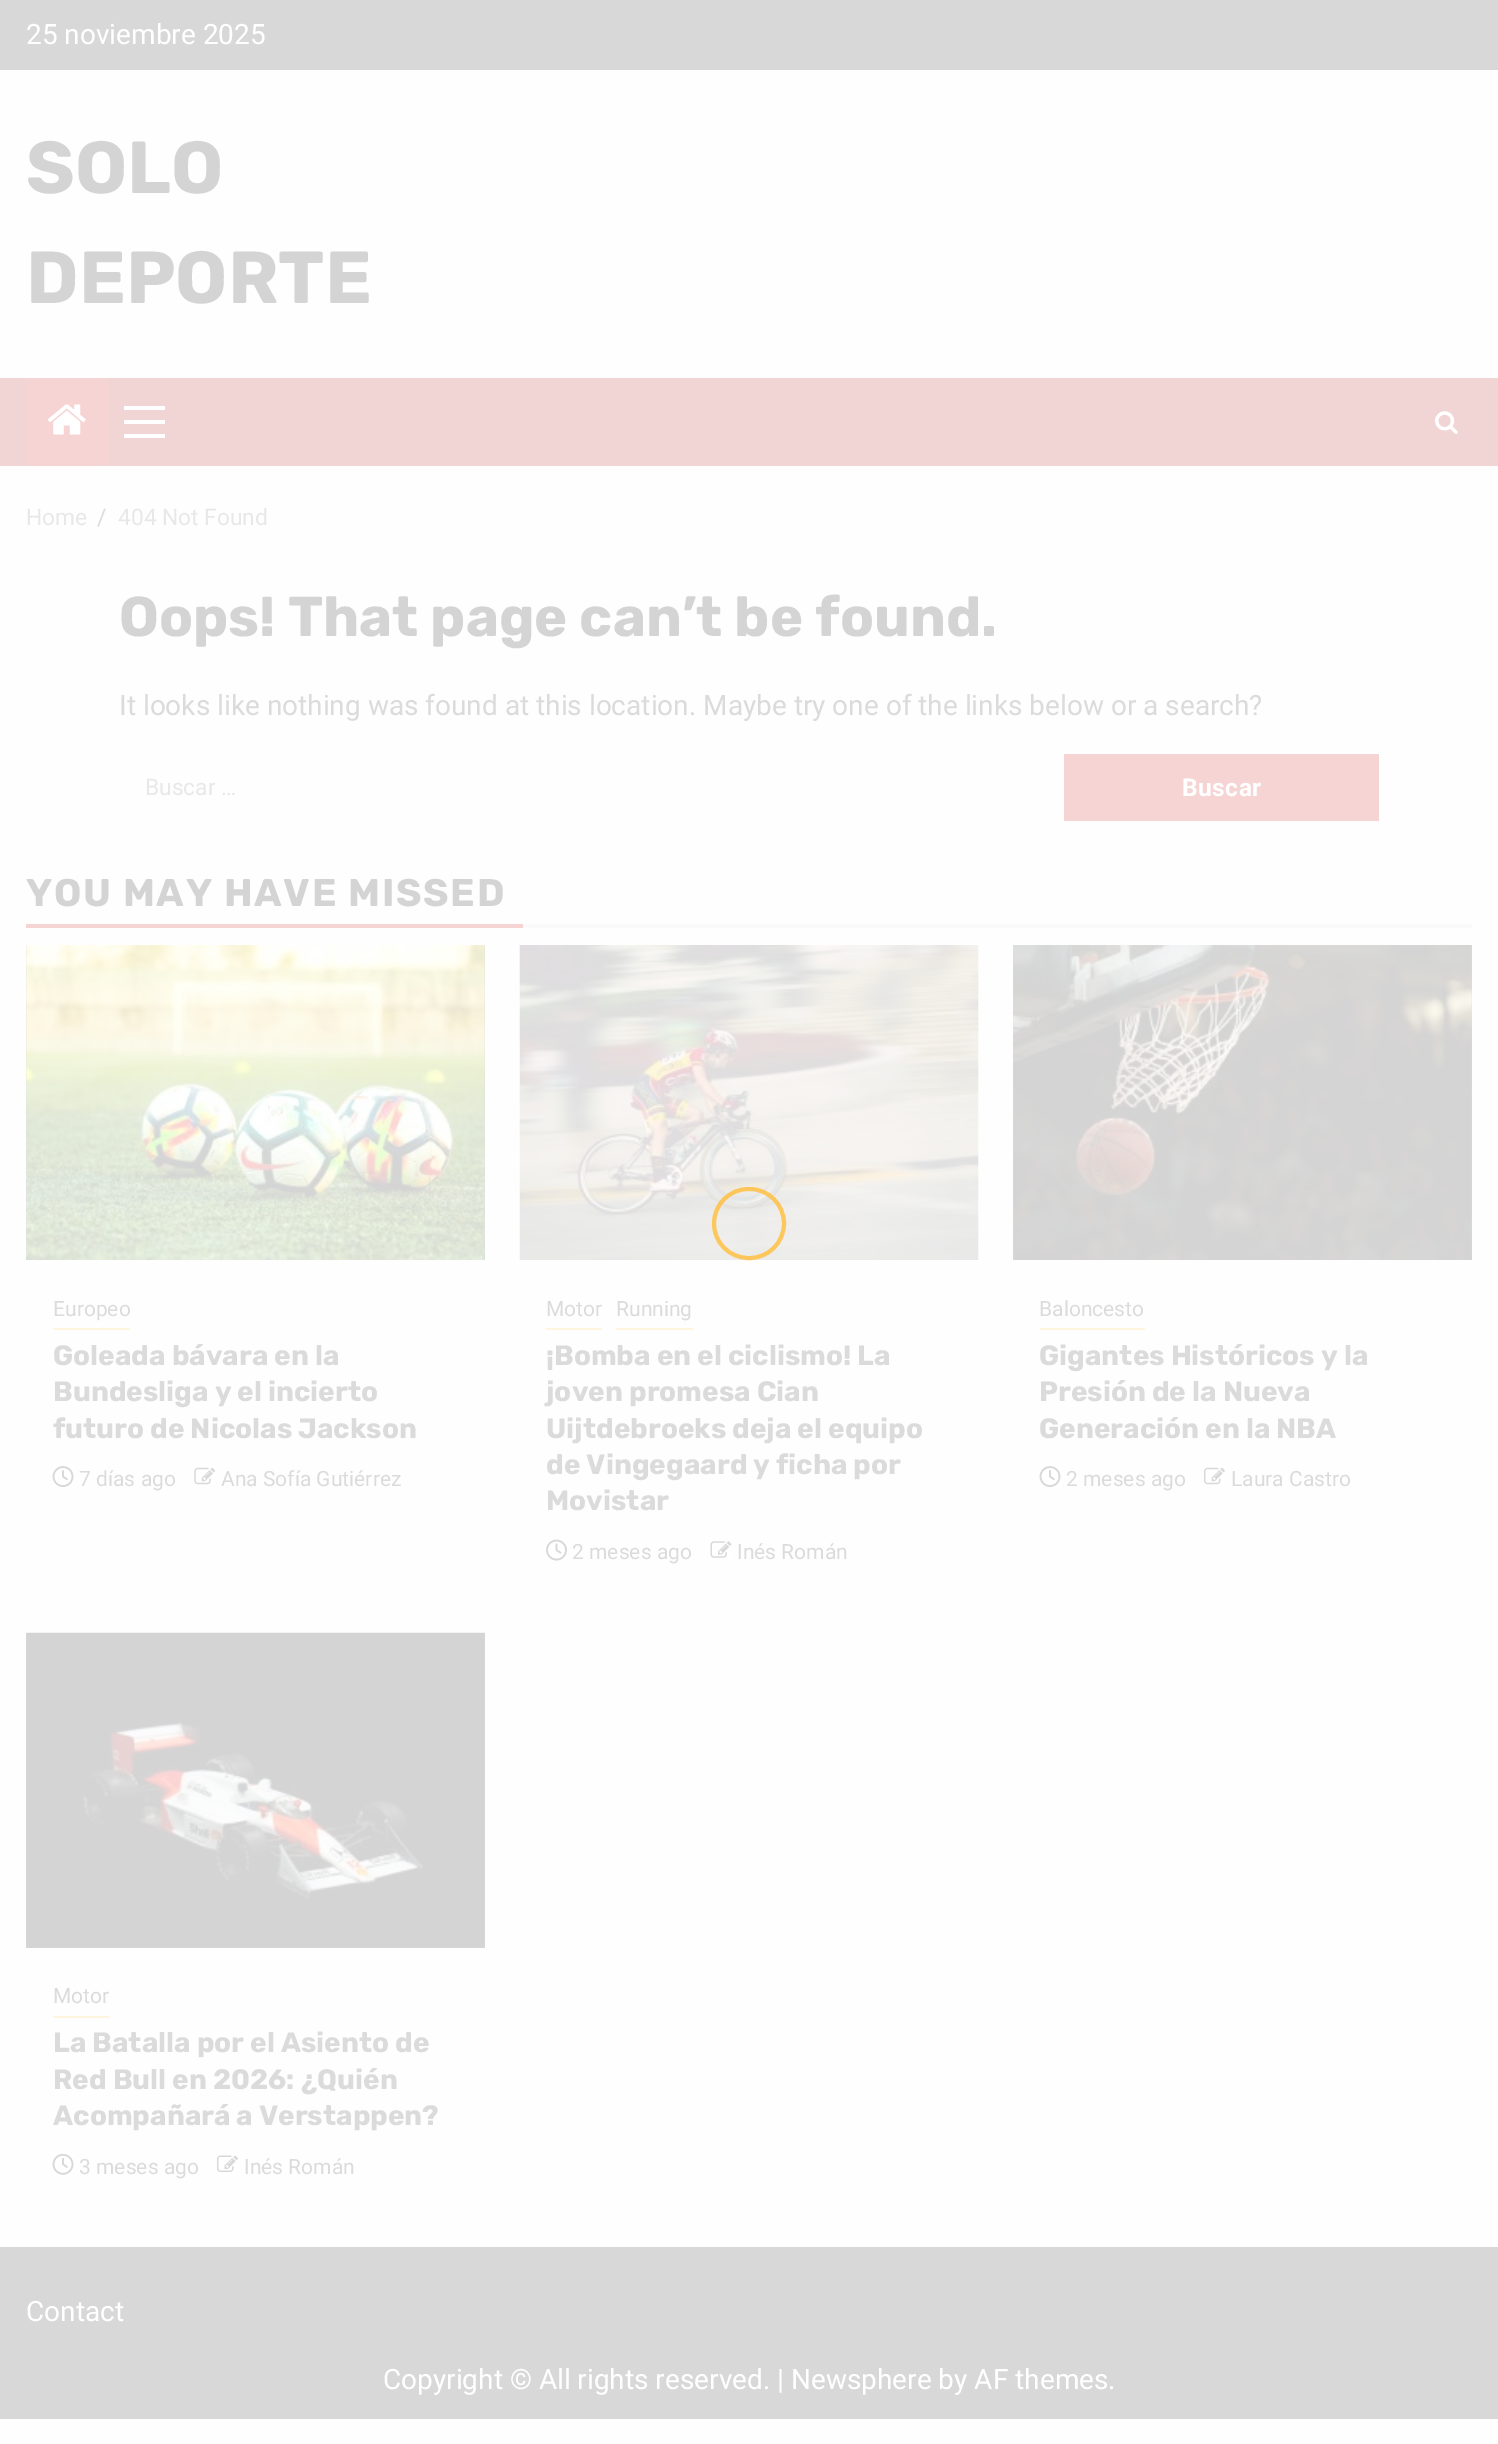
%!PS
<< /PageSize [1498 2444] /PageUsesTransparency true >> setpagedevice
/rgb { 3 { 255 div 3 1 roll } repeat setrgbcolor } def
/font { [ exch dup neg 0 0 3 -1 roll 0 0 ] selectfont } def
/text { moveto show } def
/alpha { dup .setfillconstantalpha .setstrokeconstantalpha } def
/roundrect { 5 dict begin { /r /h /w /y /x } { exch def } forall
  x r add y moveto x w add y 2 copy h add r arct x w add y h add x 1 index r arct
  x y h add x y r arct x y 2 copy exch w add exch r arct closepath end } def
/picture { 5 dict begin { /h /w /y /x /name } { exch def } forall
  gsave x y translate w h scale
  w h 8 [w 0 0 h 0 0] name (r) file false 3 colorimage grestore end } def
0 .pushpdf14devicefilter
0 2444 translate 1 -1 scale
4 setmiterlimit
254 254 254 rgb
0 0 1498 2444 rectfill
216 216 216 rgb
0 0 1498 70 rectfill
241 212 212 rgb
0 378 1498 88 rectfill
247 212 212 rgb
26 378 81 88 rectfill
(img_01.rgb) 47 404 39 31 picture
255 255 255 rgb
124 420 41 4 rectfill
124 406 41 4 rectfill
124 434 41 4 rectfill
(img_02.rgb) 1435 411 23 23 picture
247 212 212 rgb
1064 754 315 67 rectfill
26 924 497 4 rectfill
250 250 250 rgb
523 924 949 4 rectfill
(img_03.rgb) 26 945 459 315 picture
255 244 222 rgb
53 1328 77 2 rectfill
(img_04.rgb) 52 1466 22 21 picture
(img_05.rgb) 194 1467 22 18 picture
(img_06.rgb) 519 945 460 315 picture
546 1328 56 2 rectfill
616 1328 77 2 rectfill
(img_07.rgb) 546 1539 21 22 picture
(img_08.rgb) 710 1541 22 17 picture
(img_09.rgb) 1013 945 459 315 picture
1040 1328 105 2 rectfill
(img_04.rgb) 1039 1466 22 21 picture
(img_10.rgb) 1204 1467 21 18 picture
223 223 223 rgb
26 1633 459 315 rectfill
(img_11.rgb) 26 1632 459 316 picture
255 244 222 rgb
53 2016 56 2 rectfill
(img_12.rgb) 52 2153 22 22 picture
(img_13.rgb) 217 2155 21 17 picture
216 216 216 rgb
0 2247 1498 172 rectfill
0.83 alpha
255 191 63 rgb
4 setlinewidth
714 1189 70 69 34.5 roundrect stroke
/Roboto-Regular 28 font
1 alpha
255 255 255 rgb
(25 noviembre 2025) 26 44 text
/Rubik-Bold 73.5 font
212 212 212 rgb
(SOLO) 26 193 text
(DEPORTE) 26 303 text
/Roboto-Regular 22.75 font
232 232 232 rgb
(Home) 26 525 text
219 219 219 rgb
(/) 97 525 text
232 232 232 rgb
(404 Not Found) 118 525 text
/Rubik-Bold 56 font
212 212 212 rgb
(Oops! That page can’t be found.) 119 636 text
/Roboto-Regular 28 font
219 219 219 rgb
(It looks like nothing was found at this location. Maybe try one of the links below or a search?) 119 715 text
/Roboto-Regular 22.75 font
232 232 232 rgb
(Buscar …) 145 795 text
/Roboto-Bold 24.5 font
255 255 255 rgb
1182 796 moveto 0.5 0 (Buscar) ashow
/Rubik-Bold 38.5 font
212 212 212 rgb
26 906 moveto 1.75 0 (YOU MAY HAVE MISSED) ashow
/Roboto-Regular 21 font
219 219 219 rgb
(Europeo) 53 1316 text
/Rubik-Bold 28 font
(Goleada bávara en la) 53 1365 text
(Bundesliga y el incierto) 53 1401 text
(futuro de Nicolas Jackson) 53 1438 text
/Roboto-Regular 21 font
(7 días ago) 79 1486 text
(Ana Sofía Gutiérrez) 221 1486 text
(Motor) 546 1316 text
(Running) 616 1316 text
/Rubik-Bold 28 font
(¡Bomba en el ciclismo! La) 546 1365 text
(joven promesa Cian) 546 1401 text
(Uijtdebroeks deja el equipo) 546 1438 text
(de Vingegaard y ficha por) 546 1474 text
(Movistar) 546 1510 text
/Roboto-Regular 21 font
(2 meses ago) 572 1559 text
(Inés Román) 737 1559 text
(Baloncesto) 1039 1316 text
/Rubik-Bold 28 font
(Gigantes Históricos y la) 1039 1365 text
(Presión de la Nueva) 1039 1401 text
(Generación en la NBA) 1039 1438 text
/Roboto-Regular 21 font
(2 meses ago) 1066 1486 text
(Laura Castro) 1231 1486 text
(Motor) 53 2003 text
/Rubik-Bold 28 font
(La Batalla por el Asiento de) 53 2052 text
(Red Bull en 2026: ¿Quién) 53 2089 text
(Acompañará a Verstappen?) 53 2125 text
/Roboto-Regular 21 font
(3 meses ago) 79 2174 text
(Inés Román) 244 2174 text
/Roboto-Regular 28 font
255 255 255 rgb
(Contact) 26 2321 text
(Copyright © All rights reserved. | Newsphere by AF themes.) 383 2389 text
.poppdf14devicefilter showpage
